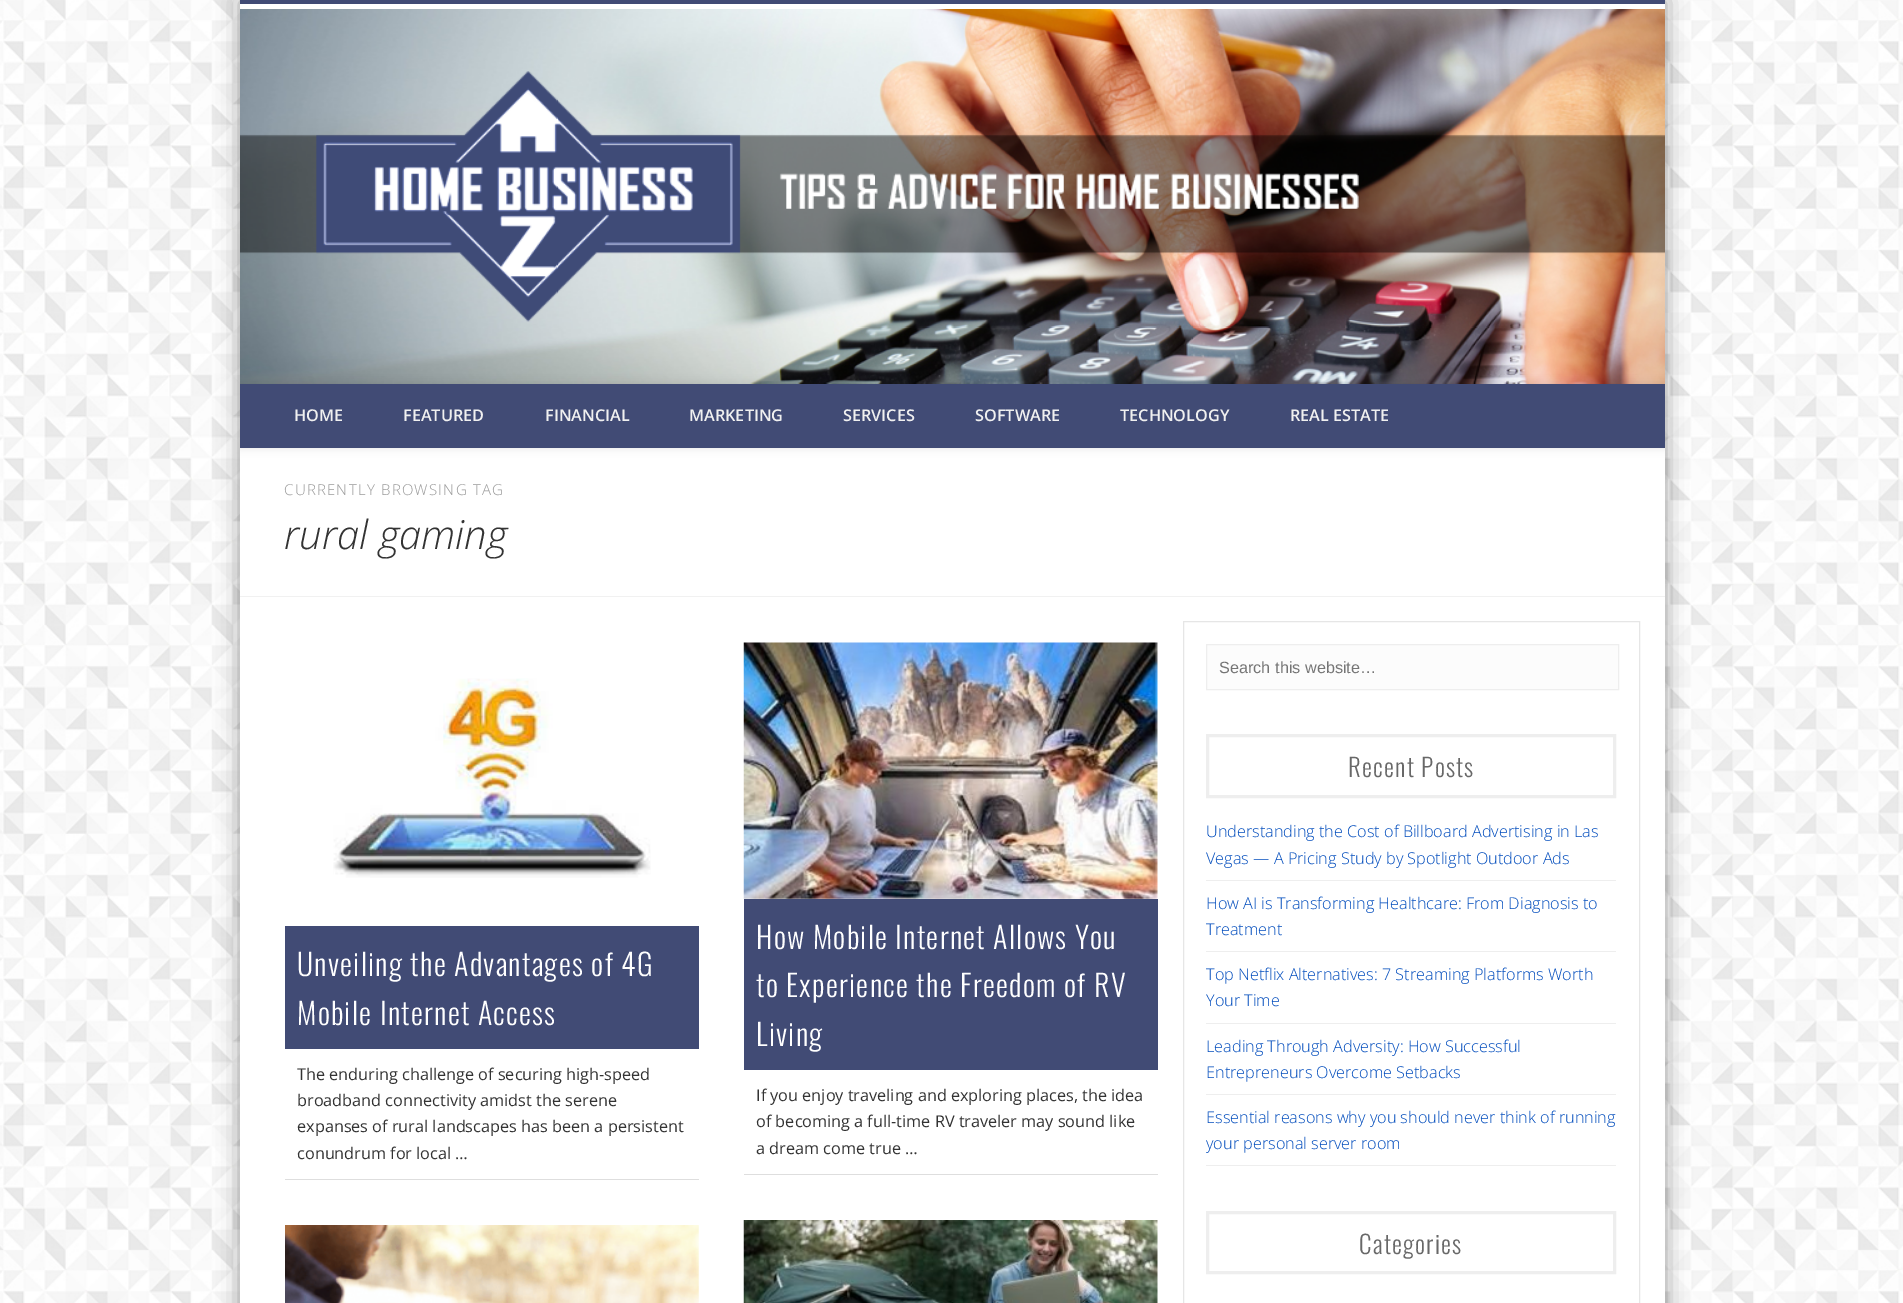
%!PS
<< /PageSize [1903 1303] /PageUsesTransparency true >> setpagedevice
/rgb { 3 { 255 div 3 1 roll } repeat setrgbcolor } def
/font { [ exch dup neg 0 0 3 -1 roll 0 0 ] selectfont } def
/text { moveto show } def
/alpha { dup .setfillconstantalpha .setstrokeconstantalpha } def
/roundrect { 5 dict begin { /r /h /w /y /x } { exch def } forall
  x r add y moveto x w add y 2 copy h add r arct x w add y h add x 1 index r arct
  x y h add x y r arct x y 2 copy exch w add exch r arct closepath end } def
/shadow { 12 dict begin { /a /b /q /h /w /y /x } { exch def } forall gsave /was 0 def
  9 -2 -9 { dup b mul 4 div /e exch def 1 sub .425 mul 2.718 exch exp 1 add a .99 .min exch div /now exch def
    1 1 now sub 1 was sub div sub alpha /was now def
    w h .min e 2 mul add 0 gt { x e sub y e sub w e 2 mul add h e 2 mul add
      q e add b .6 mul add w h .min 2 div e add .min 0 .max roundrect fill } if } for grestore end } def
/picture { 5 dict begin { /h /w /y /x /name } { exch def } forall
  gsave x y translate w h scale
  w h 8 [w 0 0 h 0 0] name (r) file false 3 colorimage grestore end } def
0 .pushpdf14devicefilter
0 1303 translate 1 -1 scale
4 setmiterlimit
255 255 255 rgb
0 0 1903 1303 rectfill
(img_01.rgb) 0 0 1903 1303 picture
0 0 0 rgb
240 0 1425 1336 0 11 0.4 shadow
255 255 255 rgb
240 4 1425 1299 rectfill
65 75 117 rgb
240 0 1425 4 rectfill
(img_02.rgb) 240 9 1425 375 picture
gsave
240 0 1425 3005 rectclip
0 0 0 rgb
240 384 1425 64 0 4.5 0.1 shadow
grestore
240 384 1425 64 rectfill
241 241 241 rgb
240 596 1425 1 rectfill
222 222 222 rgb
285 1179 414 1 rectfill
(img_03.rgb) 333 678 318 200 picture
65 75 117 rgb
285 926 414 123 rectfill
222 222 222 rgb
744 1174 414 1 rectfill
(img_04.rgb) 743 642 415 257 picture
65 75 117 rgb
744 899 414 171 rectfill
(img_05.rgb) 285 1225 414 78 picture
(img_06.rgb) 743 1220 415 83 picture
230 230 230 rgb
1183.5 621.5 456 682 rectstroke
252 252 252 rgb
1206.5 644.5 moveto 412 0 rlineto 0 45 rlineto -412 0 rlineto closepath gsave fill grestore
238 238 238 rgb
stroke
3 setlinewidth
1207.5 735.5 407 61 rectstroke
1206 880 410 1 rectfill
1206 951 410 1 rectfill
1206 1023 410 1 rectfill
1206 1094 410 1 rectfill
1206 1165 410 1 rectfill
1207.5 1212.5 407 60 rectstroke
/OpenSans-SemiBold 16.25 font
240 240 240 rgb
(HOME) 294 421 text
(FEATURED) 403 421 text
(FINANCIAL) 545 421 text
(MARKETING) 689 421 text
(SERVICES) 843 421 text
(SOFTWARE) 975 421 text
(TECHNOLOGY) 1120 421 text
(REAL ESTATE) 1290 421 text
/OpenSans-Light 15 font
153 153 153 rgb
284 495 moveto 1.25 0 (CURRENTLY BROWSING TAG) ashow
/OpenSans-LightItalic 40 font
51 51 51 rgb
(rural gaming) 284 549 text
/Oswald-Light 30 font
255 255 255 rgb
297 976 moveto 1.25 0 (Unveiling the Advantages of 4G) ashow
297 1025 moveto 1.25 0 (Mobile Internet Access) ashow
/OpenSans-Regular 16.25 font
51 51 51 rgb
(The enduring challenge of securing high-speed) 297 1080 text
(broadband connectivity amidst the serene) 297 1106 text
(expanses of rural landscapes has been a persistent) 297 1132 text
(conundrum for local …) 297 1159 text
/Oswald-Light 30 font
255 255 255 rgb
756 949 moveto 1.25 0 (How Mobile Internet Allows You) ashow
756 997 moveto 1.25 0 (to Experience the Freedom of RV) ashow
756 1046 moveto 1.25 0 (Living) ashow
/OpenSans-Regular 16.25 font
51 51 51 rgb
(If you enjoy traveling and exploring places, the idea) 756 1101 text
(of becoming a full-time RV traveler may sound like) 756 1127 text
(a dream come true …) 756 1154 text
/LiberationSans-Regular 16.25 font
117 117 117 rgb
(Search this website…) 1219 673 text
/Oswald-Light 25 font
104 104 104 rgb
1348 777 moveto 1.25 0 (Recent Posts) ashow
/OpenSans-Light 16.25 font
0 75 188 rgb
(Understanding the Cost of Billboard Advertising in Las) 1206 837 text
(Vegas — A Pricing Study by Spotlight Outdoor Ads) 1206 864 text
(How AI is Transforming Healthcare: From Diagnosis to) 1206 909 text
(Treatment) 1206 935 text
(Top Netflix Alternatives: 7 Streaming Platforms Worth) 1206 980 text
(Your Time) 1206 1006 text
(Leading Through Adversity: How Successful) 1206 1052 text
(Entrepreneurs Overcome Setbacks) 1206 1078 text
(Essential reasons why you should never think of running) 1206 1123 text
(your personal server room) 1206 1149 text
/Oswald-Light 25 font
104 104 104 rgb
1359 1254 moveto 1.25 0 (Categories) ashow
.poppdf14devicefilter showpage
